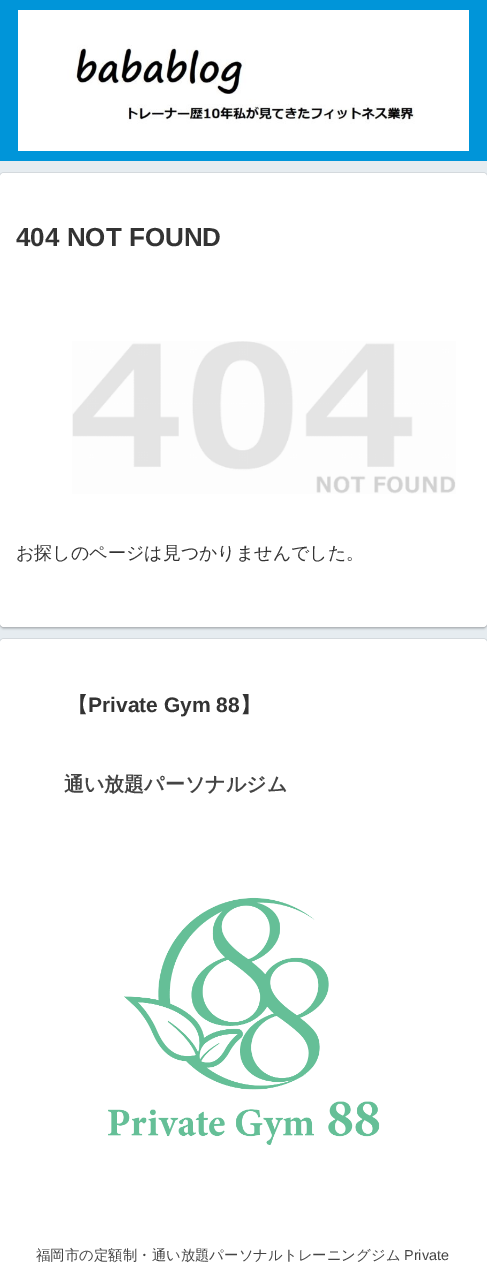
%!PS
<< /PageSize [487 1265] /PageUsesTransparency true >> setpagedevice
/rgb { 3 { 255 div 3 1 roll } repeat setrgbcolor } def
/font { [ exch dup neg 0 0 3 -1 roll 0 0 ] selectfont } def
/text { moveto show } def
/alpha { dup .setfillconstantalpha .setstrokeconstantalpha } def
/roundrect { 5 dict begin { /r /h /w /y /x } { exch def } forall
  x r add y moveto x w add y 2 copy h add r arct x w add y h add x 1 index r arct
  x y h add x y r arct x y 2 copy exch w add exch r arct closepath end } def
/shadow { 12 dict begin { /a /b /q /h /w /y /x } { exch def } forall gsave /was 0 def
  9 -2 -9 { dup b mul 4 div /e exch def 1 sub .425 mul 2.718 exch exp 1 add a .99 .min exch div /now exch def
    1 1 now sub 1 was sub div sub alpha /was now def
    w h .min e 2 mul add 0 gt { x e sub y e sub w e 2 mul add h e 2 mul add
      q e add b .6 mul add w h .min 2 div e add .min 0 .max roundrect fill } if } for grestore end } def
/picture { 5 dict begin { /h /w /y /x /name } { exch def } forall
  gsave x y translate w h scale
  w h 8 [w 0 0 h 0 0] name (r) file false 3 colorimage grestore end } def
0 .pushpdf14devicefilter
0 1265 translate 1 -1 scale
4 setmiterlimit
230 236 240 rgb
0 0 487 1265 rectfill
0 149 217 rgb
0 0 487 161 rectfill
(img_01.rgb) 18 10 451 141 picture
212 217 221 rgb
-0.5 172.5 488 455 4.5 roundrect stroke
0 0 0 rgb
0 175 487 454 4 1 0.16 shadow
255 255 255 rgb
0 173 487 454 4 roundrect fill
(img_02.rgb) 72 341 384 153 picture
212 217 221 rgb
-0.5 638.5 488 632 4.5 roundrect stroke
255 255 255 rgb
0 639 487 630 4 roundrect fill
(img_03.rgb) 108 897 272 248 picture
/LiberationSans-Bold 26 font
51 51 51 rgb
(404 NOT FOUND) 16 246 text
/WenQuanYiZenHei-Medium 18 font
(お探しのページは見つかりませんでした。) 16 559 text
/WenQuanYiZenHei-Bold 21 font
(【) 67 712 text
/LiberationSans-Bold 21 font
(Private Gym 88) 88 712 text
/WenQuanYiZenHei-Bold 21 font
(】) 240 712 text
/WenQuanYiZenHei-Bold 20 font
68 68 68 rgb
(通い放題パーソナルジム) 64 791 text
/WenQuanYiZenHei-Medium 14.4 font
(福岡市の定額制・通い放題パーソナルトレーニングジム) 36 1260 text
/LiberationSans-Regular 14.4 font
(Private) 404 1260 text
.poppdf14devicefilter showpage
